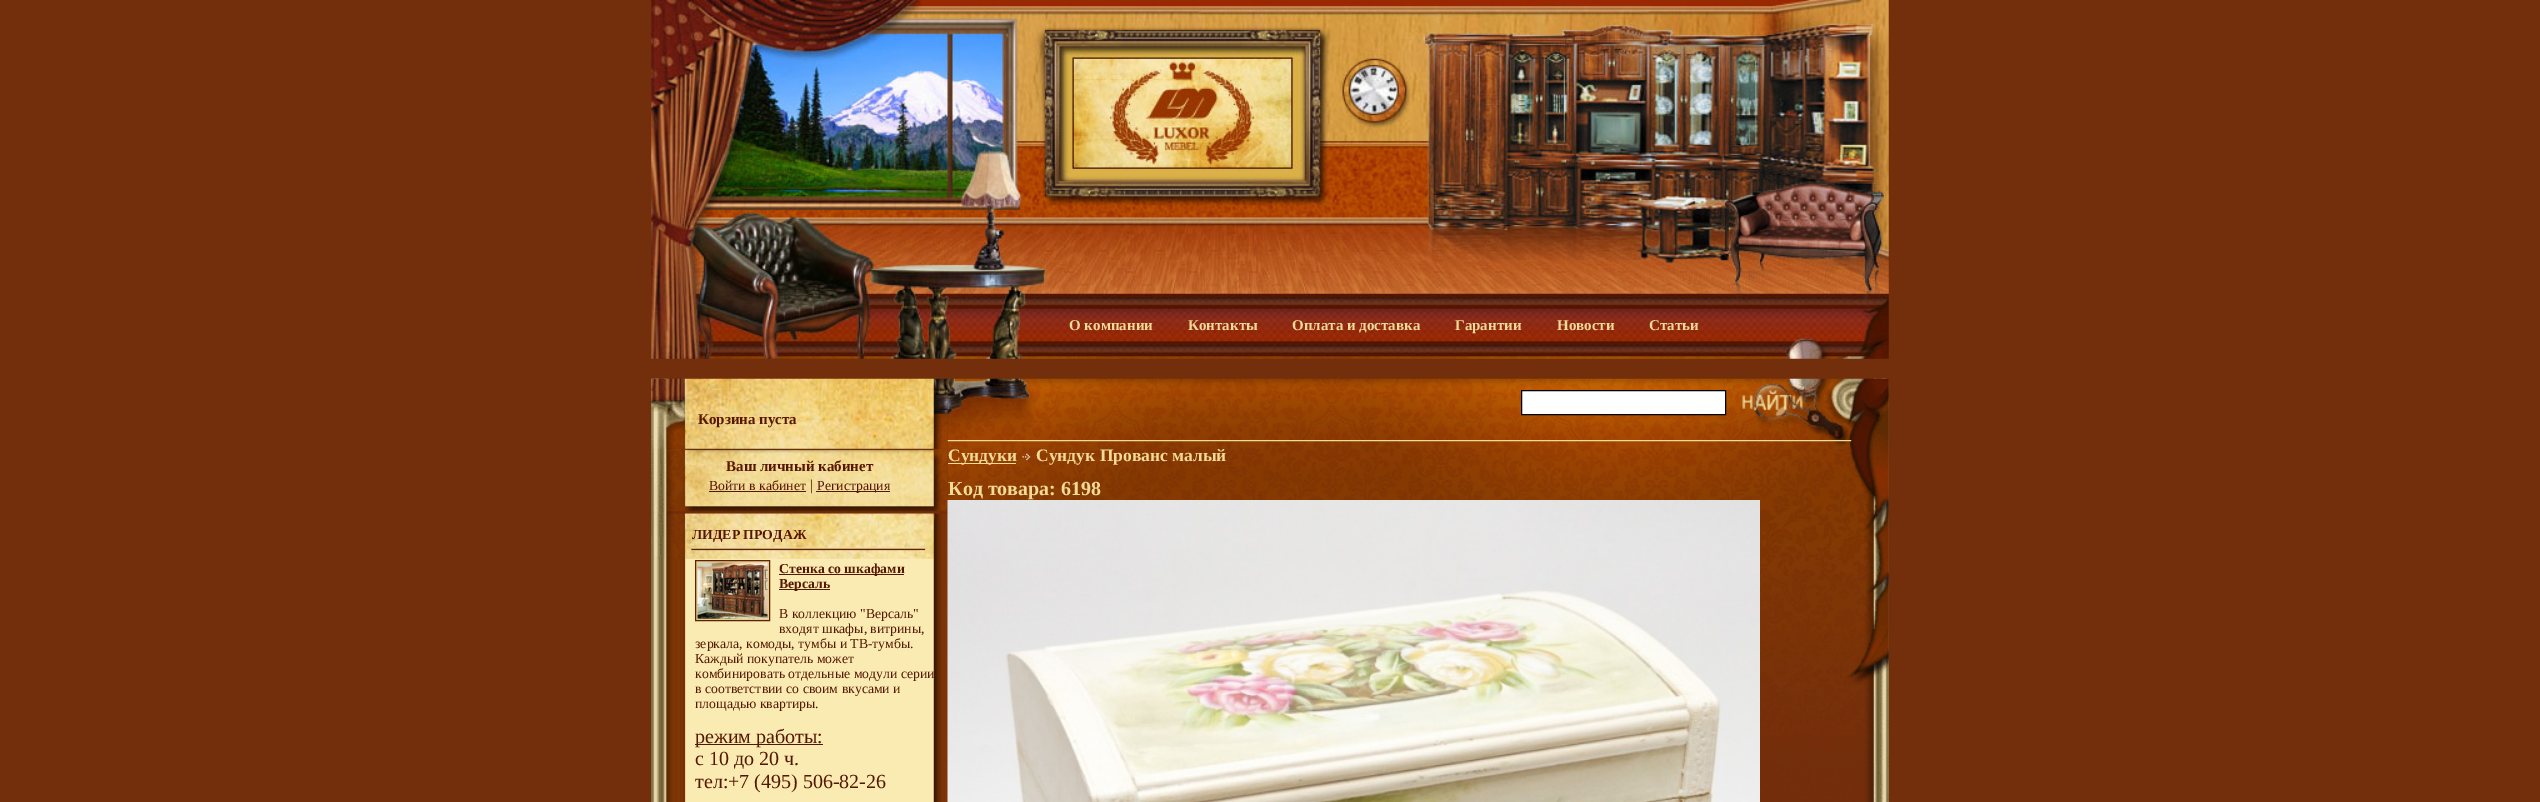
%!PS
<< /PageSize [2540 802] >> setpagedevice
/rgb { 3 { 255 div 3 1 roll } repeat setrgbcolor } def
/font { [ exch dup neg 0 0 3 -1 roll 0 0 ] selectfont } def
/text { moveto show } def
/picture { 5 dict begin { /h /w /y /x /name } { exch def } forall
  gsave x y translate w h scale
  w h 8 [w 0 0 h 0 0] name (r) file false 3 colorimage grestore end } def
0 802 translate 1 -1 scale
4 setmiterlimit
115 46 12 rgb
0 0 2540 802 rectfill
(img_01.rgb) 651 0 1238 359 picture
(img_02.rgb) 651 378 1238 424 picture
(img_08.rgb) 947 378 942 424 picture
(img_04.rgb) 651 448 297 64 picture
(img_09.rgb) 947 440 905 2 picture
(img_03.rgb) 651 378 297 71 picture
86 23 1 rgb
709 491 97 1 rectfill
816 491 74 1 rectfill
(img_05.rgb) 651 513 297 289 picture
(img_06.rgb) 651 513 284 46 picture
230 205 133 rgb
695.5 560.5 moveto 74 0 rlineto 0 60 rlineto -74 0 rlineto closepath gsave fill grestore
95 34 9 rgb
stroke
(img_07.rgb) 697 562 71 57 picture
86 23 1 rgb
779 574 125 1 rectfill
779 589 51 1 rectfill
695 744 128 1 rectfill
255 255 255 rgb
1521.5 390.5 moveto 204 0 rlineto 0 24 rlineto -204 0 rlineto closepath gsave fill grestore
0 0 0 rgb
stroke
242 219 151 rgb
948 463 68 1 rectfill
(img_10.rgb) 1022 453 9 8 picture
(img_11.rgb) 947 500 813 302 picture
/LiberationSerif-Bold 15 font
(О компании) 1069 330 text
(Контакты) 1188 330 text
(Оплата и доставка) 1292 330 text
(Гарантии) 1455 330 text
(Новости) 1557 330 text
(Статьи) 1649 330 text
86 23 1 rgb
(Корзина пуста) 698 424 text
(Ваш личный кабинет) 726 471 text
/LiberationSerif-Regular 13.75 font
(Войти в кабинет) 709 490 text
/LiberationSerif-Regular 15 font
(|) 810 490 text
/LiberationSerif-Regular 13.75 font
(Регистрация) 817 490 text
/LiberationSerif-Bold 13.75 font
(ЛИДЕР ПРОДАЖ) 692 539 text
(Стенка со шкафами) 779 573 text
(Версаль) 779 588 text
/LiberationSerif-Regular 13.75 font
(В коллекцию "Версаль") 779 618 text
(входят шкафы, витрины,) 779 633 text
(зеркала, комоды, тумбы и ТВ-тумбы.) 695 648 text
(Каждый покупатель может) 695 663 text
(комбинировать отдельные модули серии) 695 678 text
(в соответствии со своим вкусами и) 695 693 text
(площадью квартиры.) 695 708 text
/LiberationSerif-Regular 20 font
(режим работы:) 695 743 text
(с 10 до 20 ч.) 695 765 text
(тел:+7 \(495\) 506-82-26) 695 788 text
/LiberationSerif-Bold 17.5 font
242 219 151 rgb
(Сундуки) 948 461 text
(Сундук Прованс малый) 1036 461 text
/LiberationSerif-Bold 20 font
(Код товара: 6198) 948 495 text
showpage
